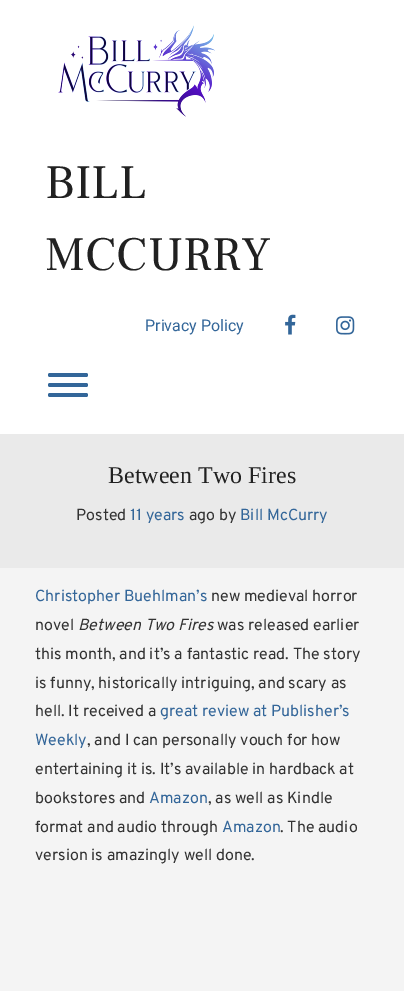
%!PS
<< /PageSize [404 991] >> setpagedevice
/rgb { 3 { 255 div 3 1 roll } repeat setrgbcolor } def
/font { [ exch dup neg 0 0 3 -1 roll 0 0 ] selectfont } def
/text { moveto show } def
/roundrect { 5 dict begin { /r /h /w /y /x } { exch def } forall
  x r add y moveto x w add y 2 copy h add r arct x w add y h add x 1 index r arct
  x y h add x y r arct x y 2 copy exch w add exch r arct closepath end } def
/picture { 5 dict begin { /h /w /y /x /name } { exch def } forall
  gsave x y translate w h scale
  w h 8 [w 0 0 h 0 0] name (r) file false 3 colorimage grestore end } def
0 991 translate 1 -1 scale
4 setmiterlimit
244 244 244 rgb
0 0 404 991 rectfill
255 255 255 rgb
0 0 404 434 rectfill
(img_01.rgb) 58 25 157 92 picture
(img_02.rgb) 285 314 11 21 picture
(img_03.rgb) 336 316 19 19 picture
51 102 153 rgb
48 393 40 4 2 roundrect fill
48 373 40 4 2 roundrect fill
48 383 40 4 2 roundrect fill
234 234 234 rgb
0 434 404 134 rectfill
/FrankRuhlLibre-Regular 48 font
33 33 33 rgb
(BILL) 45 198 text
(MCCURRY) 45 270 text
/Roboto-Regular 16 font
51 102 153 rgb
(Privacy Policy) 145 331 text
/Tinos-Regular 24 font
33 33 33 rgb
(Between Two Fires) 108 483 text
/Overpass-Regular 16 font
51 51 51 rgb
(Posted) 76 520 text
51 102 153 rgb
(11 years) 130 520 text
51 51 51 rgb
(ago by) 189 520 text
51 102 153 rgb
(Bill McCurry) 240 520 text
(Christopher Buehlman’s) 35 601 text
51 51 51 rgb
(new medieval horror) 211 601 text
(novel) 35 630 text
/Overpass-Italic 16 font
(Between Two Fires) 78 630 text
/Overpass-Regular 16 font
(was released earlier) 217 630 text
(this month, and it’s a fantastic read. The story) 35 659 text
(is funny, historically intriguing, and scary as) 35 688 text
(hell. It received a) 35 716 text
51 102 153 rgb
(great review at Publisher’s) 160 716 text
(Weekly) 35 745 text
51 51 51 rgb
(, and I can personally vouch for how) 87 745 text
(entertaining it is. It’s available in hardback at) 35 774 text
(bookstores and) 35 803 text
51 102 153 rgb
(Amazon) 149 803 text
51 51 51 rgb
(, as well as Kindle) 208 803 text
(format and audio through) 35 832 text
51 102 153 rgb
(Amazon) 222 832 text
51 51 51 rgb
(. The audio) 280 832 text
(version is amazingly well done.) 35 860 text
showpage
